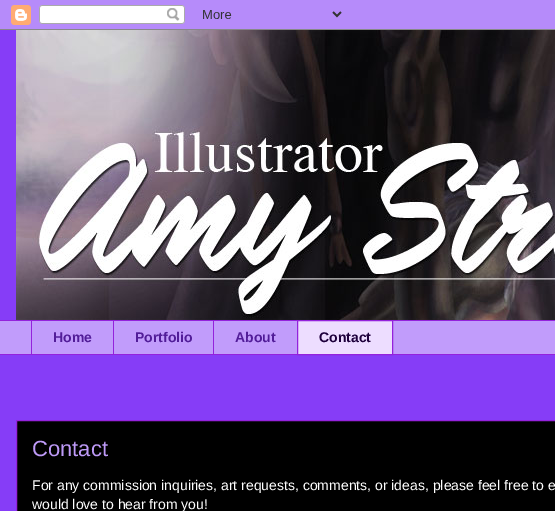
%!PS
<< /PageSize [555 511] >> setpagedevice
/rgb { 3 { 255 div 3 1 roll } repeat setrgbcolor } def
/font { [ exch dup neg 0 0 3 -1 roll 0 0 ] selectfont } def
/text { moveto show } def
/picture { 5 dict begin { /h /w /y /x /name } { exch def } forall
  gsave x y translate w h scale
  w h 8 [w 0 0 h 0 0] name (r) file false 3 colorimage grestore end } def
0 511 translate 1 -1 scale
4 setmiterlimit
134 61 247 rgb
0 0 555 511 rectfill
(img_01.rgb) 0 0 555 30 picture
(img_02.rgb) 16 30 539 290 picture
193 156 251 rgb
0 321 555 33 rectfill
148 34 220 rgb
0 320 555 1 rectfill
31 320 1 35 rectfill
113 320 1 35 rectfill
213 320 1 35 rectfill
237 221 255 rgb
297.5 320.5 moveto 95 0 rlineto 0 34 rlineto -95 0 rlineto closepath gsave fill grestore
148 34 220 rgb
stroke
0 354 555 1 rectfill
0 0 0 rgb
16.5 420.5 moveto 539 0 rlineto 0 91 rlineto -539 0 rlineto closepath gsave fill grestore
148 34 220 rgb
stroke
/LiberationSans-Bold 14 font
82 29 153 rgb
(Home) 53 342 text
(Portfolio) 135 342 text
(About) 235 342 text
30 0 60 rgb
(Contact) 319 342 text
/LiberationSans-Regular 22 font
190 154 247 rgb
(Contact) 32 456 text
/LiberationSans-Regular 14 font
255 255 255 rgb
(For any commission inquiries, art requests, comments, or ideas, please feel free to e) 32 490 text
(would love to hear from you!) 32 509 text
showpage
